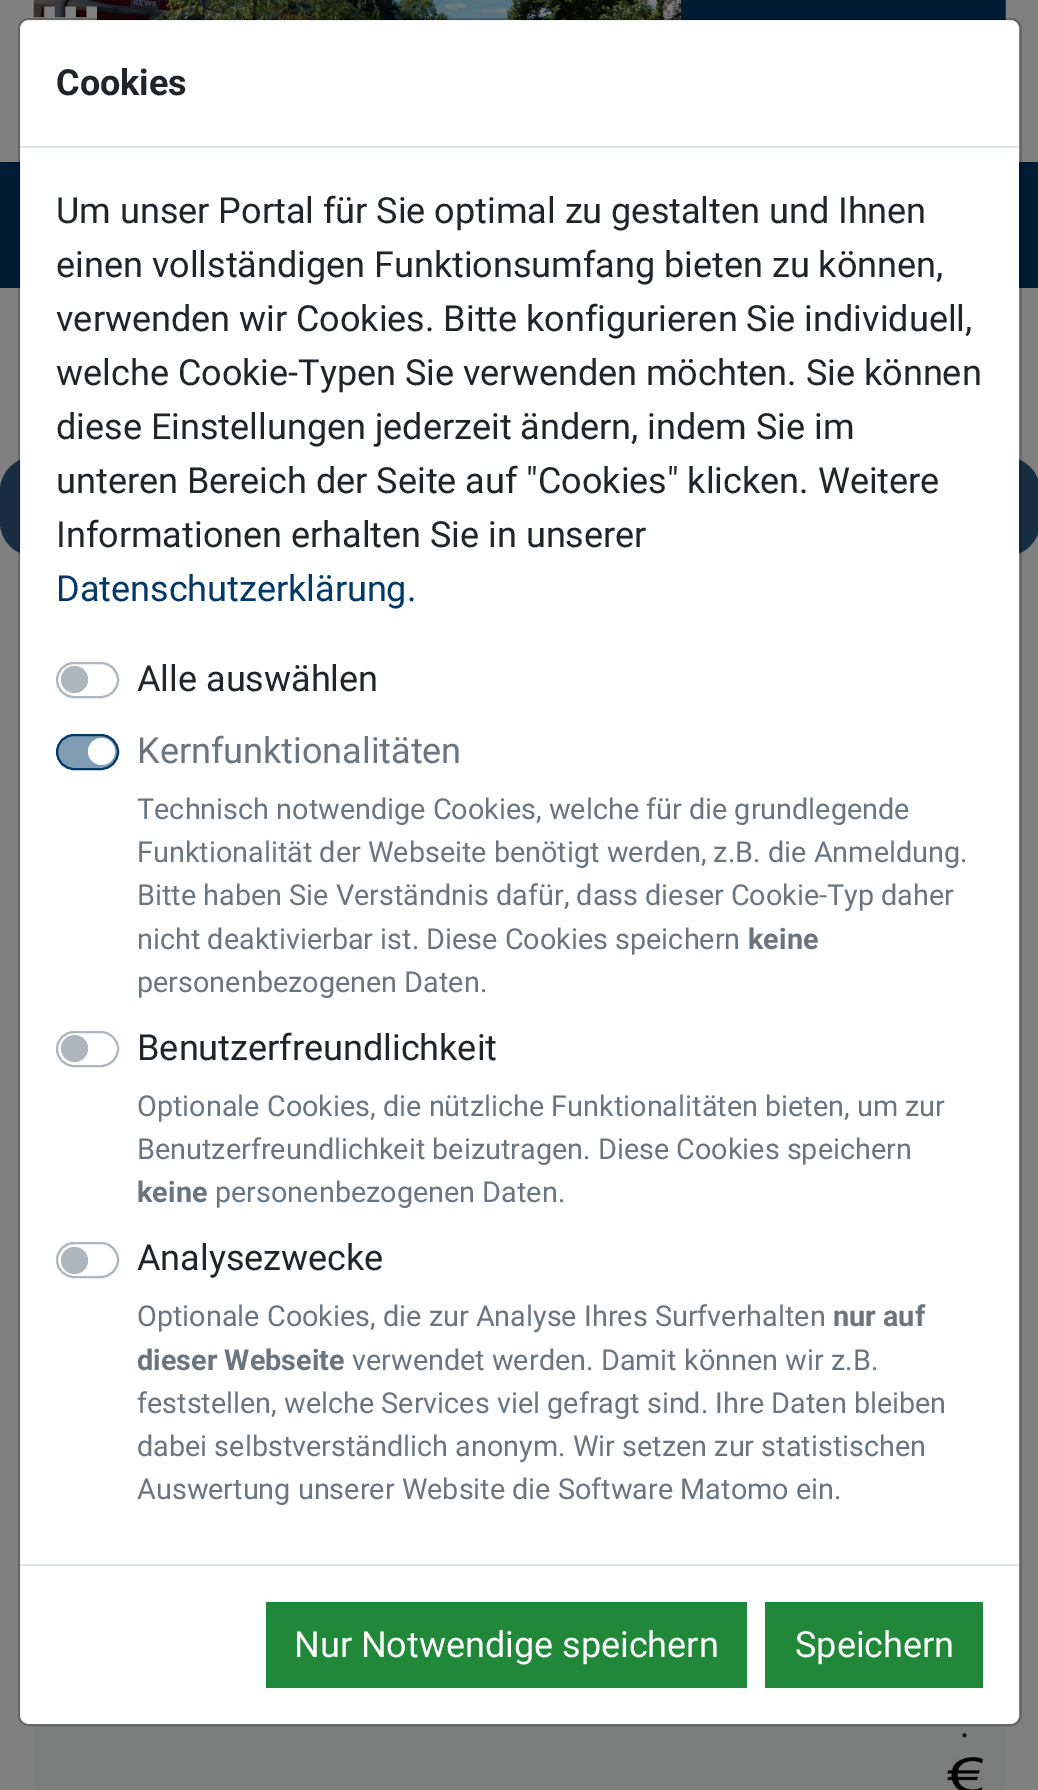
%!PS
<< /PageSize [1038 1790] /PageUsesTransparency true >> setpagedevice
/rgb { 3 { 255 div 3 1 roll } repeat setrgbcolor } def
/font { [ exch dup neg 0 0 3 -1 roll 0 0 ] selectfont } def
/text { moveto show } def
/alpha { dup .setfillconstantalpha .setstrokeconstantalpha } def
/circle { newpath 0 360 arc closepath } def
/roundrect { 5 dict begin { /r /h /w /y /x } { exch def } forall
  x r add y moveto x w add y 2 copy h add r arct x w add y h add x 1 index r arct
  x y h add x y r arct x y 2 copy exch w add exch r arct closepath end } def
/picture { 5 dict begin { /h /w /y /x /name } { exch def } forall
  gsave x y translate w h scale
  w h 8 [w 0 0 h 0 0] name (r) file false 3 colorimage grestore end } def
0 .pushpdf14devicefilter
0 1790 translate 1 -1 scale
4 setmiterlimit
128 128 128 rgb
0 0 1038 1790 rectfill
0 28 52 rgb
0 162 1038 126 rectfill
24 45 66 rgb
23 setlinewidth
11.5 468.5 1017 76 22.5 roundrect stroke
255 255 255 rgb
20 20 999 1704 9 roundrect fill
(img_01.rgb) 33 0 973 20 picture
124 125 125 rgb
34 1724 972 66 rectfill
0.2 alpha
0 0 0 rgb
2 setlinewidth
19 19 1002 1706 10 roundrect stroke
1 alpha
222 226 230 rgb
20 146 999 2 rectfill
173 181 189 rgb
57 663 61 34 17 roundrect stroke
74.5 679.5 13.5 circle fill
128 156 179 rgb
57 735 61 34 17 roundrect gsave fill grestore
0 56 103 rgb
stroke
255 255 255 rgb
101.5 751.5 13.5 circle fill
173 181 189 rgb
57 1032 61 34 17 roundrect stroke
74.5 1048.5 13.5 circle fill
57 1243 61 34 17 roundrect stroke
74.5 1260.5 13.5 circle fill
222 226 230 rgb
20 1564 999 2 rectfill
33 135 57 rgb
266 1602 481 86 rectfill
765 1602 218 86 rectfill
(img_02.rgb) 947 1757 37 33 picture
/Roboto-Bold 36 font
33 37 41 rgb
(Cookies) 56 95 text
/Roboto-Regular 36 font
(Um unser Portal für Sie optimal zu gestalten und Ihnen) 56 223 text
(einen vollständigen Funktionsumfang bieten zu können,) 56 277 text
(verwenden wir Cookies. Bitte konfigurieren Sie individuell,) 56 331 text
(welche Cookie-Typen Sie verwenden möchten. Sie können) 56 385 text
(diese Einstellungen jederzeit ändern, indem Sie im) 56 439 text
(unteren Bereich der Seite auf "Cookies" klicken. Weitere) 56 493 text
(Informationen erhalten Sie in unserer) 56 547 text
0 56 103 rgb
(Datenschutzerklärung.) 56 601 text
33 37 41 rgb
(Alle auswählen) 137 691 text
108 117 125 rgb
(Kernfunktionalitäten) 137 763 text
/Roboto-Regular 28.8 font
(Technisch notwendige Cookies, welche für die grundlegende) 137 819 text
(Funktionalität der Webseite benötigt werden, z.B. die Anmeldung.) 137 862 text
(Bitte haben Sie Verständnis dafür, dass dieser Cookie-Typ daher) 137 905 text
(nicht deaktivierbar ist. Diese Cookies speichern) 137 949 text
/Roboto-Bold 28.8 font
(keine) 748 949 text
/Roboto-Regular 28.8 font
(personenbezogenen Daten.) 137 992 text
/Roboto-Regular 36 font
33 37 41 rgb
(Benutzerfreundlichkeit) 137 1060 text
/Roboto-Regular 28.8 font
108 117 125 rgb
(Optionale Cookies, die nützliche Funktionalitäten bieten, um zur) 137 1116 text
(Benutzerfreundlichkeit beizutragen. Diese Cookies speichern) 137 1159 text
/Roboto-Bold 28.8 font
(keine) 137 1202 text
/Roboto-Regular 28.8 font
(personenbezogenen Daten.) 215 1202 text
/Roboto-Regular 36 font
33 37 41 rgb
(Analysezwecke) 137 1270 text
/Roboto-Regular 28.8 font
108 117 125 rgb
(Optionale Cookies, die zur Analyse Ihres Surfverhalten) 137 1326 text
/Roboto-Bold 28.8 font
(nur auf) 833 1326 text
(dieser Webseite) 137 1370 text
/Roboto-Regular 28.8 font
(verwendet werden. Damit können wir z.B.) 352 1370 text
(feststellen, welche Services viel gefragt sind. Ihre Daten bleiben) 137 1413 text
(dabei selbstverständlich anonym. Wir setzen zur statistischen) 137 1456 text
(Auswertung unserer Website die Software Matomo ein.) 137 1499 text
/Roboto-Regular 36 font
255 255 255 rgb
(Nur Notwendige speichern) 294 1657 text
(Speichern) 795 1657 text
17 19 21 rgb
(.) 960 1737 text
.poppdf14devicefilter showpage
